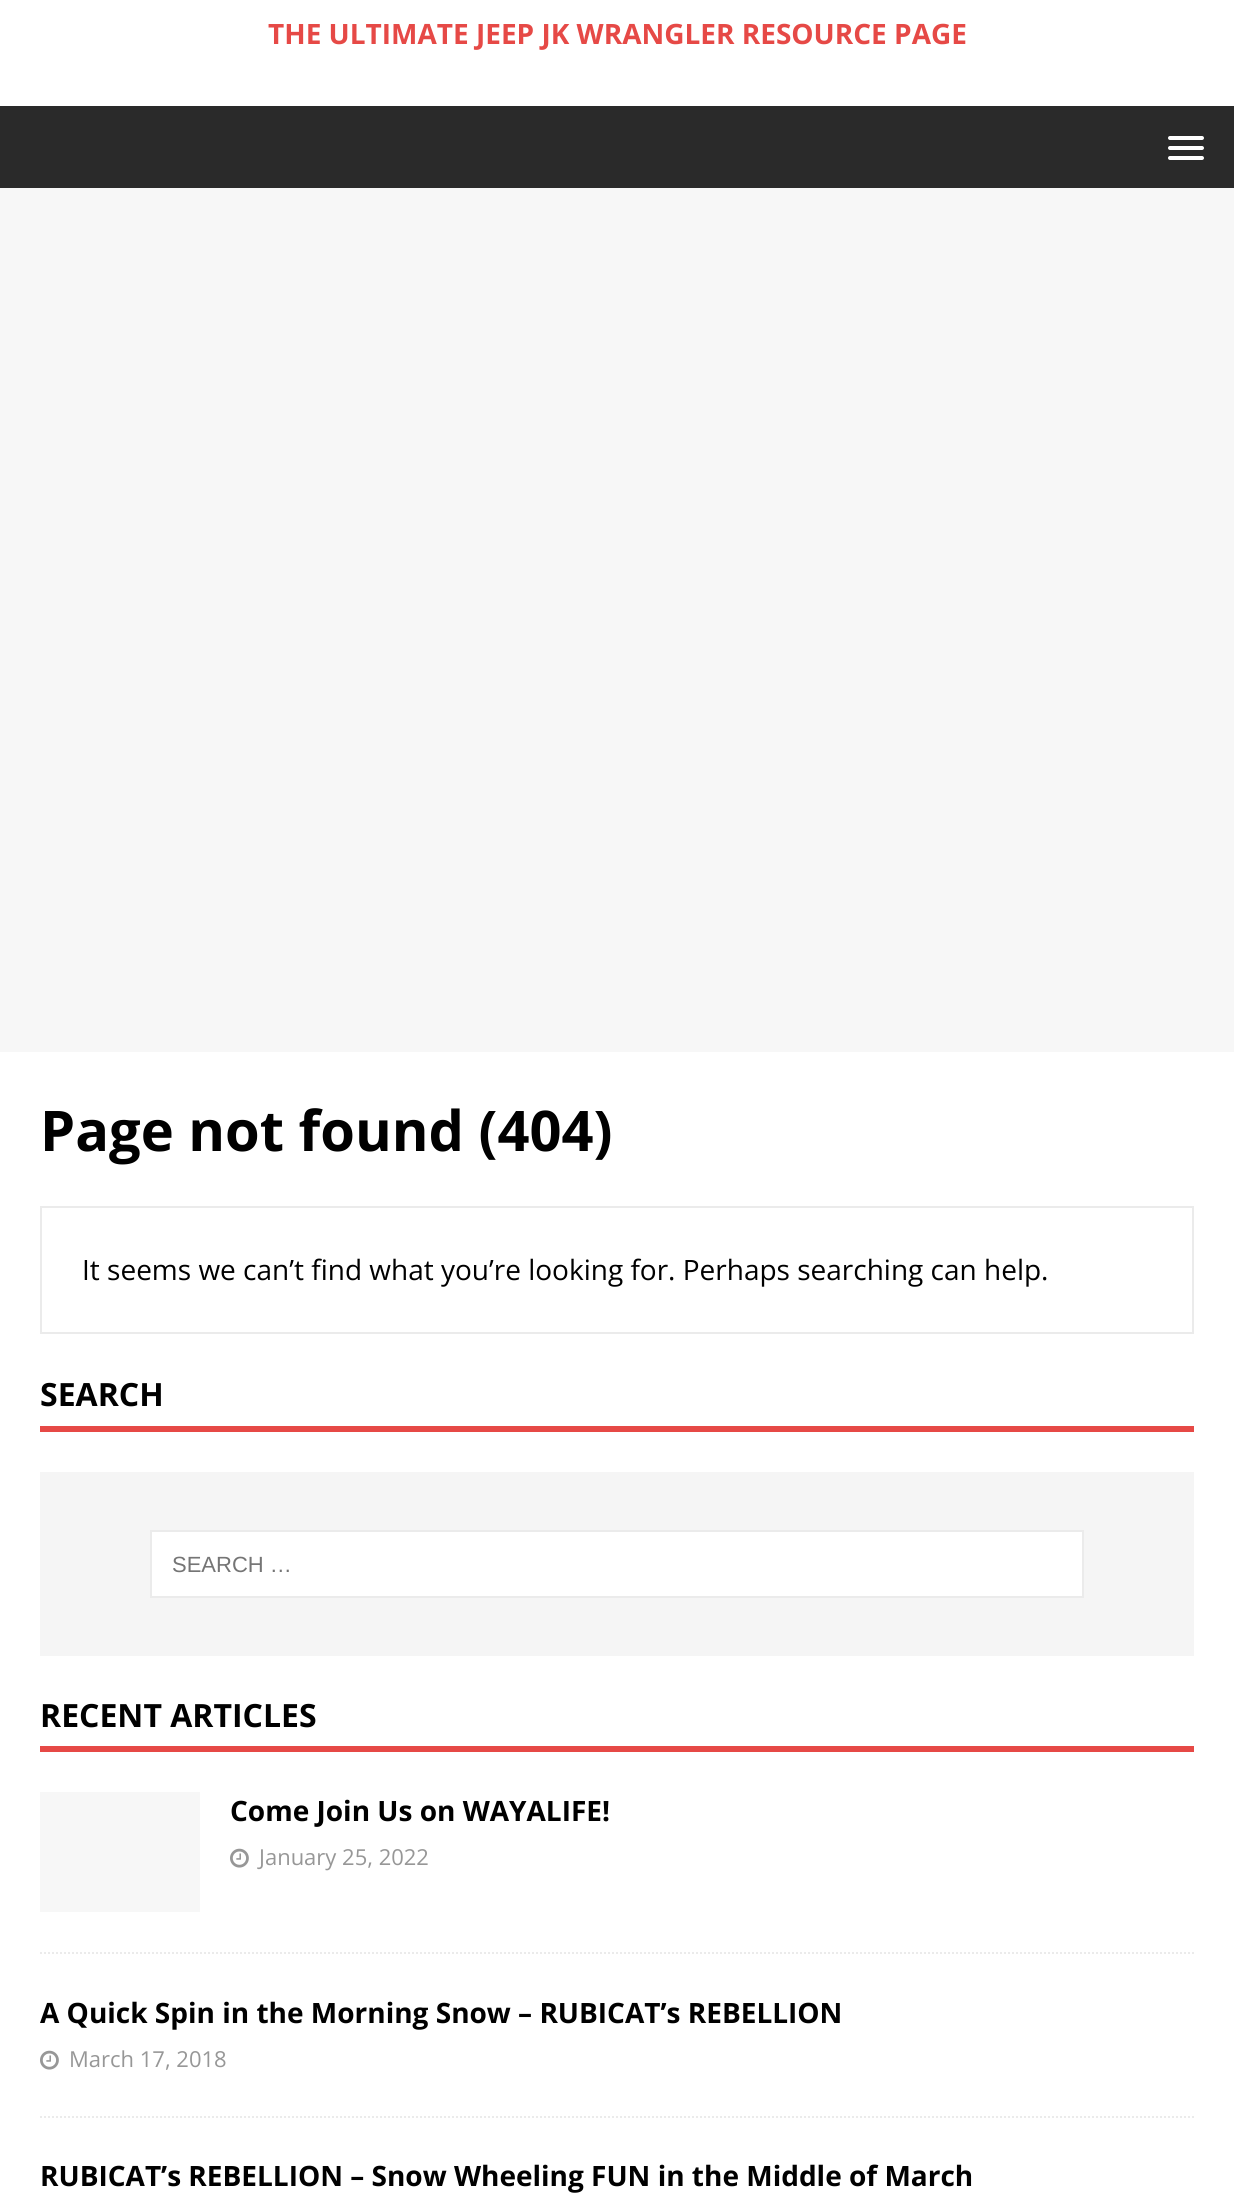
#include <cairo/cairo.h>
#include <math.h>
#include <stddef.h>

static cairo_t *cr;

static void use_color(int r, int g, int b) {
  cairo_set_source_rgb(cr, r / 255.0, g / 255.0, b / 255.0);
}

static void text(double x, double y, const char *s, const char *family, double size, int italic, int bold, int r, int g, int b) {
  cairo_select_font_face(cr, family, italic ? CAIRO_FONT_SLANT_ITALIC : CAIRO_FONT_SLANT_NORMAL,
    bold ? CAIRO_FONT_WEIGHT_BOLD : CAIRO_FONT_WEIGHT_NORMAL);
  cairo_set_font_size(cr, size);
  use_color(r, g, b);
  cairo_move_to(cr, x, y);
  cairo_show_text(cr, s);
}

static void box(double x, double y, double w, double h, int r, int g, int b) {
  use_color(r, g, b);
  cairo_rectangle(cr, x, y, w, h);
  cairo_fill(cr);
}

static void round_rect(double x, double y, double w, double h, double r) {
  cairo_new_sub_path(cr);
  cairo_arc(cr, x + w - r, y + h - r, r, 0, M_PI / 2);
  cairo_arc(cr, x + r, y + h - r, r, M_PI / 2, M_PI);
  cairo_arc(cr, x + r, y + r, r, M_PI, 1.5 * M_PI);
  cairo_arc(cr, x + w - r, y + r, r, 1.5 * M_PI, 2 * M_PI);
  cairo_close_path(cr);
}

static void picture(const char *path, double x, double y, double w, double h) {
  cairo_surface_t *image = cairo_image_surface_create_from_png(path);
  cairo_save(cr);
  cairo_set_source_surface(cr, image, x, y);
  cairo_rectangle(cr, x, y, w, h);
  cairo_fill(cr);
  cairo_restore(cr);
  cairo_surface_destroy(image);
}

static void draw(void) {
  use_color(247, 247, 247);
  cairo_paint(cr);
  box(0, 0, 1234, 106, 255, 255, 255);
  box(0, 106, 1234, 82, 42, 42, 42);
  use_color(255, 255, 255);
  round_rect(1168, 136, 36, 4, 2);
  cairo_fill(cr);
  round_rect(1168, 146, 36, 4, 2);
  cairo_fill(cr);
  round_rect(1168, 156, 36, 4, 2);
  cairo_fill(cr);
  box(0, 1052, 1234, 1149, 255, 255, 255);
  cairo_rectangle(cr, 41, 1207, 1152, 126);
  use_color(235, 235, 235);
  cairo_stroke(cr);
  box(40, 1426, 1154, 6, 230, 73, 70);
  box(40, 1472, 1154, 184, 245, 245, 245);
  use_color(255, 255, 255);
  cairo_rectangle(cr, 151, 1531, 932, 66);
  cairo_fill_preserve(cr);
  use_color(235, 235, 235);
  cairo_stroke(cr);
  box(40, 1746, 1154, 6, 230, 73, 70);
  cairo_new_path(cr);
  cairo_move_to(cr, 40, 1953);
  cairo_line_to(cr, 1194, 1953);
  use_color(235, 235, 235);
  cairo_set_dash(cr, (double[]){2, 2}, 2, 0);
  cairo_stroke(cr);
  box(40, 1792, 160, 120, 247, 247, 247);
  picture("img_01.png", 230, 1848, 19, 20);
  cairo_new_path(cr);
  cairo_move_to(cr, 40, 2117);
  cairo_line_to(cr, 1194, 2117);
  use_color(235, 235, 235);
  cairo_stroke(cr);
  picture("img_01.png", 40, 2050, 19, 20);
  text(268, 44, "THE ULTIMATE JEEP JK WRANGLER RESOURCE PAGE", "Open Sans", 28, 0, 1, 230, 73, 70);
  text(40, 1151, "Page not found (404)", "Open Sans", 56, 0, 1, 0, 0, 0);
  text(82, 1280, "It seems we can’t find what you’re looking for. Perhaps searching can help.", "Open Sans", 28, 0, 0, 0, 0, 0);
  text(40, 1406, "SEARCH", "Open Sans", 32, 0, 1, 0, 0, 0);
  text(172, 1572, "SEARCH …", "Liberation Sans", 22, 0, 0, 117, 117, 117);
  text(40, 1727, "RECENT ARTICLES", "Open Sans", 32, 0, 1, 0, 0, 0);
  text(230, 1821, "Come Join Us on WAYALIFE!", "Open Sans", 28, 0, 1, 0, 0, 0);
  text(259, 1865, "January 25, 2022", "Open Sans", 22, 0, 0, 151, 151, 151);
  text(40, 2023, "A Quick Spin in the Morning Snow – RUBICAT’s REBELLION", "Open Sans", 28, 0, 1, 0, 0, 0);
  text(69, 2067, "March 17, 2018", "Open Sans", 22, 0, 0, 151, 151, 151);
  text(40, 2186, "RUBICAT’s REBELLION – Snow Wheeling FUN in the Middle of March", "Open Sans", 28, 0, 1, 0, 0, 0);
}

int main(void) {
  cairo_surface_t *surface = cairo_image_surface_create(CAIRO_FORMAT_RGB24, 1234, 2201);
  cr = cairo_create(surface);
  cairo_font_options_t *options = cairo_font_options_create();
  cairo_font_options_set_hint_metrics(options, CAIRO_HINT_METRICS_OFF);
  cairo_font_options_set_hint_style(options, CAIRO_HINT_STYLE_NONE);
  cairo_set_font_options(cr, options);
  cairo_set_miter_limit(cr, 4);
  draw();
  cairo_surface_write_to_png(surface, "out.png");
  cairo_font_options_destroy(options);
  cairo_destroy(cr);
  cairo_surface_destroy(surface);
  return 0;
}
